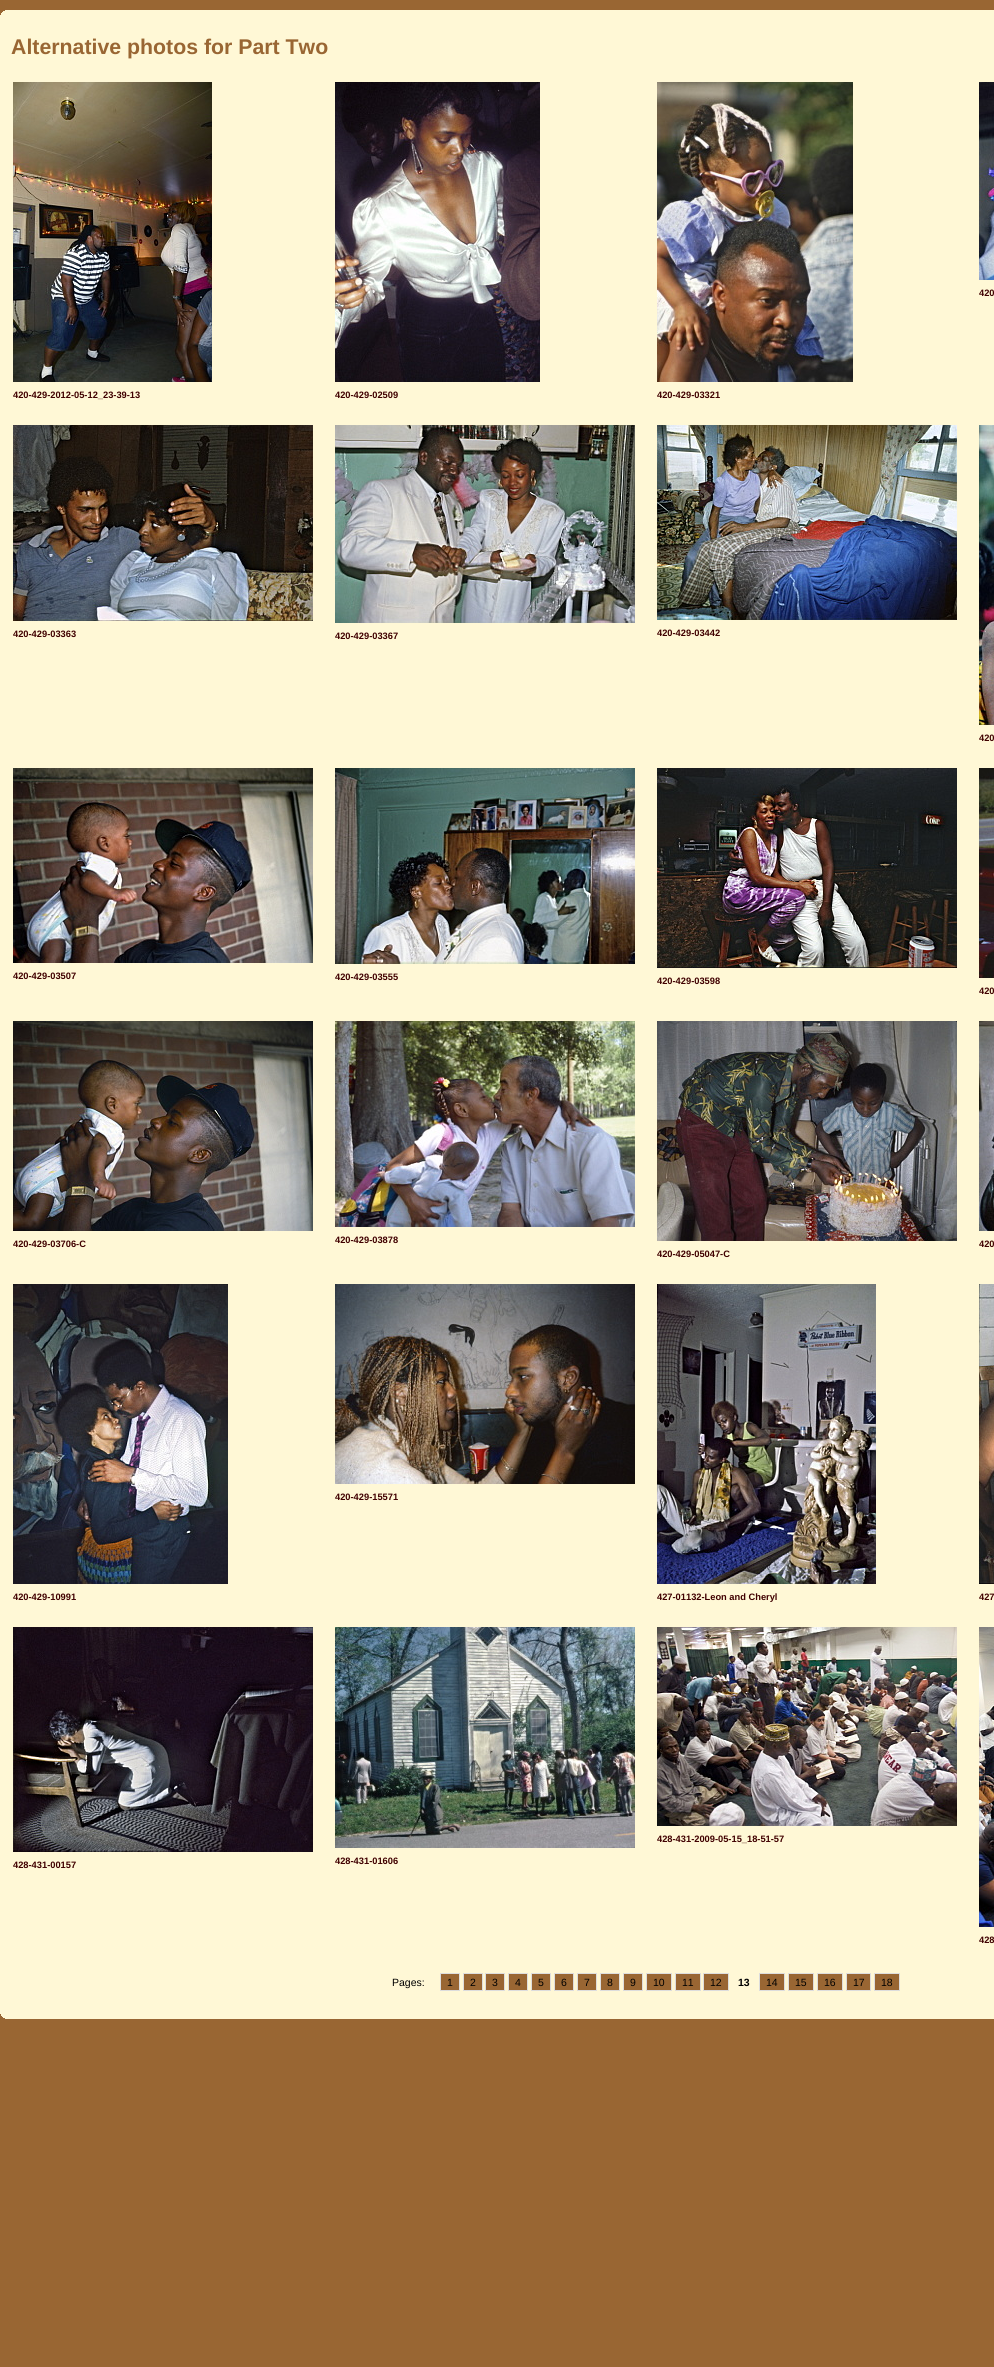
#include <cairo/cairo.h>
#include <math.h>
#include <stddef.h>

static cairo_t *cr;

static void use_color(int r, int g, int b) {
  cairo_set_source_rgb(cr, r / 255.0, g / 255.0, b / 255.0);
}

static void text(double x, double y, const char *s, const char *family, double size, int italic, int bold, int r, int g, int b) {
  cairo_select_font_face(cr, family, italic ? CAIRO_FONT_SLANT_ITALIC : CAIRO_FONT_SLANT_NORMAL,
    bold ? CAIRO_FONT_WEIGHT_BOLD : CAIRO_FONT_WEIGHT_NORMAL);
  cairo_set_font_size(cr, size);
  use_color(r, g, b);
  cairo_move_to(cr, x, y);
  cairo_show_text(cr, s);
}

static void box(double x, double y, double w, double h, int r, int g, int b) {
  use_color(r, g, b);
  cairo_rectangle(cr, x, y, w, h);
  cairo_fill(cr);
}

static void picture(const char *path, double x, double y, double w, double h) {
  cairo_surface_t *image = cairo_image_surface_create_from_png(path);
  cairo_save(cr);
  cairo_set_source_surface(cr, image, x, y);
  cairo_rectangle(cr, x, y, w, h);
  cairo_fill(cr);
  cairo_restore(cr);
  cairo_surface_destroy(image);
}

static void draw(void) {
  use_color(153, 102, 51);
  cairo_paint(cr);
  box(5, 10, 989, 1, 255, 248, 214);
  box(3, 11, 991, 1, 255, 248, 214);
  box(2, 12, 992, 1, 255, 248, 214);
  box(1, 13, 993, 2, 255, 248, 214);
  box(0, 15, 994, 45, 255, 248, 214);
  box(0, 60, 994, 1954, 255, 248, 214);
  picture("img_01.png", 979, 82, 15, 198);
  picture("img_02.png", 13, 82, 199, 300);
  picture("img_03.png", 335, 82, 205, 300);
  picture("img_04.png", 657, 82, 196, 300);
  picture("img_05.png", 13, 425, 300, 196);
  picture("img_06.png", 335, 425, 300, 198);
  picture("img_07.png", 657, 425, 300, 195);
  picture("img_08.png", 979, 425, 15, 300);
  picture("img_09.png", 13, 768, 300, 195);
  picture("img_10.png", 335, 768, 300, 196);
  picture("img_11.png", 657, 768, 300, 200);
  picture("img_12.png", 979, 768, 15, 210);
  picture("img_13.png", 13, 1021, 300, 210);
  picture("img_14.png", 335, 1021, 300, 206);
  picture("img_15.png", 979, 1021, 15, 210);
  picture("img_16.png", 657, 1021, 300, 220);
  picture("img_17.png", 335, 1284, 300, 200);
  picture("img_18.png", 13, 1284, 215, 300);
  picture("img_19.png", 657, 1284, 219, 300);
  picture("img_20.png", 979, 1284, 15, 300);
  picture("img_21.png", 657, 1627, 300, 199);
  picture("img_22.png", 13, 1627, 300, 225);
  picture("img_23.png", 335, 1627, 300, 221);
  picture("img_24.png", 979, 1627, 15, 300);
  use_color(153, 102, 51);
  cairo_rectangle(cr, 440.5, 1973.5, 19, 17);
  cairo_fill_preserve(cr);
  use_color(221, 221, 221);
  cairo_set_line_width(cr, 1);
  cairo_stroke(cr);
  use_color(153, 102, 51);
  cairo_rectangle(cr, 463.5, 1973.5, 19, 17);
  cairo_fill_preserve(cr);
  use_color(221, 221, 221);
  cairo_stroke(cr);
  use_color(153, 102, 51);
  cairo_rectangle(cr, 485.5, 1973.5, 19, 17);
  cairo_fill_preserve(cr);
  use_color(221, 221, 221);
  cairo_stroke(cr);
  use_color(153, 102, 51);
  cairo_rectangle(cr, 508.5, 1973.5, 19, 17);
  cairo_fill_preserve(cr);
  use_color(221, 221, 221);
  cairo_stroke(cr);
  use_color(153, 102, 51);
  cairo_rectangle(cr, 531.5, 1973.5, 19, 17);
  cairo_fill_preserve(cr);
  use_color(221, 221, 221);
  cairo_stroke(cr);
  use_color(153, 102, 51);
  cairo_rectangle(cr, 554.5, 1973.5, 19, 17);
  cairo_fill_preserve(cr);
  use_color(221, 221, 221);
  cairo_stroke(cr);
  use_color(153, 102, 51);
  cairo_rectangle(cr, 577.5, 1973.5, 19, 17);
  cairo_fill_preserve(cr);
  use_color(221, 221, 221);
  cairo_stroke(cr);
  use_color(153, 102, 51);
  cairo_rectangle(cr, 600.5, 1973.5, 19, 17);
  cairo_fill_preserve(cr);
  use_color(221, 221, 221);
  cairo_stroke(cr);
  use_color(153, 102, 51);
  cairo_rectangle(cr, 623.5, 1973.5, 19, 17);
  cairo_fill_preserve(cr);
  use_color(221, 221, 221);
  cairo_stroke(cr);
  use_color(153, 102, 51);
  cairo_rectangle(cr, 646.5, 1973.5, 25, 17);
  cairo_fill_preserve(cr);
  use_color(221, 221, 221);
  cairo_stroke(cr);
  use_color(153, 102, 51);
  cairo_rectangle(cr, 675.5, 1973.5, 25, 17);
  cairo_fill_preserve(cr);
  use_color(221, 221, 221);
  cairo_stroke(cr);
  use_color(153, 102, 51);
  cairo_rectangle(cr, 703.5, 1973.5, 25, 17);
  cairo_fill_preserve(cr);
  use_color(221, 221, 221);
  cairo_stroke(cr);
  use_color(153, 102, 51);
  cairo_rectangle(cr, 759.5, 1973.5, 25, 17);
  cairo_fill_preserve(cr);
  use_color(221, 221, 221);
  cairo_stroke(cr);
  use_color(153, 102, 51);
  cairo_rectangle(cr, 788.5, 1973.5, 25, 17);
  cairo_fill_preserve(cr);
  use_color(221, 221, 221);
  cairo_stroke(cr);
  use_color(153, 102, 51);
  cairo_rectangle(cr, 817.5, 1973.5, 25, 17);
  cairo_fill_preserve(cr);
  use_color(221, 221, 221);
  cairo_stroke(cr);
  use_color(153, 102, 51);
  cairo_rectangle(cr, 846.5, 1973.5, 24, 17);
  cairo_fill_preserve(cr);
  use_color(221, 221, 221);
  cairo_stroke(cr);
  use_color(153, 102, 51);
  cairo_rectangle(cr, 874.5, 1973.5, 25, 17);
  cairo_fill_preserve(cr);
  use_color(221, 221, 221);
  cairo_stroke(cr);
  box(1, 2014, 993, 2, 255, 248, 214);
  box(2, 2016, 992, 1, 255, 248, 214);
  box(3, 2017, 991, 1, 255, 248, 214);
  box(5, 2018, 989, 1, 255, 248, 214);
  text(11, 54, "Alternative photos for Part Two", "Liberation Sans", 21.3, 0, 1, 153, 102, 51);
  text(979, 296, "420", "Liberation Sans", 9.3, 0, 1, 64, 0, 0);
  text(13, 398, "420-429-2012-05-12_23-39-13", "Liberation Sans", 9.3, 0, 1, 64, 0, 0);
  text(335, 398, "420-429-02509", "Liberation Sans", 9.3, 0, 1, 64, 0, 0);
  text(657, 398, "420-429-03321", "Liberation Sans", 9.3, 0, 1, 64, 0, 0);
  text(13, 637, "420-429-03363", "Liberation Sans", 9.3, 0, 1, 64, 0, 0);
  text(335, 639, "420-429-03367", "Liberation Sans", 9.3, 0, 1, 64, 0, 0);
  text(657, 636, "420-429-03442", "Liberation Sans", 9.3, 0, 1, 64, 0, 0);
  text(979, 741, "420", "Liberation Sans", 9.3, 0, 1, 64, 0, 0);
  text(13, 979, "420-429-03507", "Liberation Sans", 9.3, 0, 1, 64, 0, 0);
  text(335, 980, "420-429-03555", "Liberation Sans", 9.3, 0, 1, 64, 0, 0);
  text(657, 984, "420-429-03598", "Liberation Sans", 9.3, 0, 1, 64, 0, 0);
  text(979, 994, "420", "Liberation Sans", 9.3, 0, 1, 64, 0, 0);
  text(13, 1247, "420-429-03706-C", "Liberation Sans", 9.3, 0, 1, 64, 0, 0);
  text(335, 1243, "420-429-03878", "Liberation Sans", 9.3, 0, 1, 64, 0, 0);
  text(979, 1247, "420", "Liberation Sans", 9.3, 0, 1, 64, 0, 0);
  text(657, 1257, "420-429-05047-C", "Liberation Sans", 9.3, 0, 1, 64, 0, 0);
  text(335, 1500, "420-429-15571", "Liberation Sans", 9.3, 0, 1, 64, 0, 0);
  text(13, 1600, "420-429-10991", "Liberation Sans", 9.3, 0, 1, 64, 0, 0);
  text(657, 1600, "427-01132-Leon and Cheryl", "Liberation Sans", 9.3, 0, 1, 64, 0, 0);
  text(979, 1600, "427", "Liberation Sans", 9.3, 0, 1, 64, 0, 0);
  text(657, 1842, "428-431-2009-05-15_18-51-57", "Liberation Sans", 9.3, 0, 1, 64, 0, 0);
  text(13, 1868, "428-431-00157", "Liberation Sans", 9.3, 0, 1, 64, 0, 0);
  text(335, 1864, "428-431-01606", "Liberation Sans", 9.3, 0, 1, 64, 0, 0);
  text(979, 1943, "428", "Liberation Sans", 9.3, 0, 1, 64, 0, 0);
  text(392, 1986, "Pages:", "Liberation Sans", 10.5, 0, 0, 0, 0, 0);
  text(447, 1986, "1", "Liberation Sans", 10.5, 0, 0, 0, 0, 0);
  text(470, 1986, "2", "Liberation Sans", 10.5, 0, 0, 0, 0, 0);
  text(492, 1986, "3", "Liberation Sans", 10.5, 0, 0, 0, 0, 0);
  text(515, 1986, "4", "Liberation Sans", 10.5, 0, 0, 0, 0, 0);
  text(538, 1986, "5", "Liberation Sans", 10.5, 0, 0, 0, 0, 0);
  text(561, 1986, "6", "Liberation Sans", 10.5, 0, 0, 0, 0, 0);
  text(584, 1986, "7", "Liberation Sans", 10.5, 0, 0, 0, 0, 0);
  text(607, 1986, "8", "Liberation Sans", 10.5, 0, 0, 0, 0, 0);
  text(630, 1986, "9", "Liberation Sans", 10.5, 0, 0, 0, 0, 0);
  text(653, 1986, "10", "Liberation Sans", 10.5, 0, 0, 0, 0, 0);
  text(682, 1986, "11", "Liberation Sans", 10.5, 0, 0, 0, 0, 0);
  text(710, 1986, "12", "Liberation Sans", 10.5, 0, 0, 0, 0, 0);
  text(738, 1986, "13", "Liberation Sans", 10.5, 0, 1, 0, 0, 0);
  text(766, 1986, "14", "Liberation Sans", 10.5, 0, 0, 0, 0, 0);
  text(795, 1986, "15", "Liberation Sans", 10.5, 0, 0, 0, 0, 0);
  text(824, 1986, "16", "Liberation Sans", 10.5, 0, 0, 0, 0, 0);
  text(853, 1986, "17", "Liberation Sans", 10.5, 0, 0, 0, 0, 0);
  text(881, 1986, "18", "Liberation Sans", 10.5, 0, 0, 0, 0, 0);
}

int main(void) {
  cairo_surface_t *surface = cairo_image_surface_create(CAIRO_FORMAT_RGB24, 994, 2367);
  cr = cairo_create(surface);
  cairo_font_options_t *options = cairo_font_options_create();
  cairo_font_options_set_hint_metrics(options, CAIRO_HINT_METRICS_OFF);
  cairo_font_options_set_hint_style(options, CAIRO_HINT_STYLE_NONE);
  cairo_set_font_options(cr, options);
  cairo_set_miter_limit(cr, 4);
  draw();
  cairo_surface_write_to_png(surface, "out.png");
  cairo_font_options_destroy(options);
  cairo_destroy(cr);
  cairo_surface_destroy(surface);
  return 0;
}
